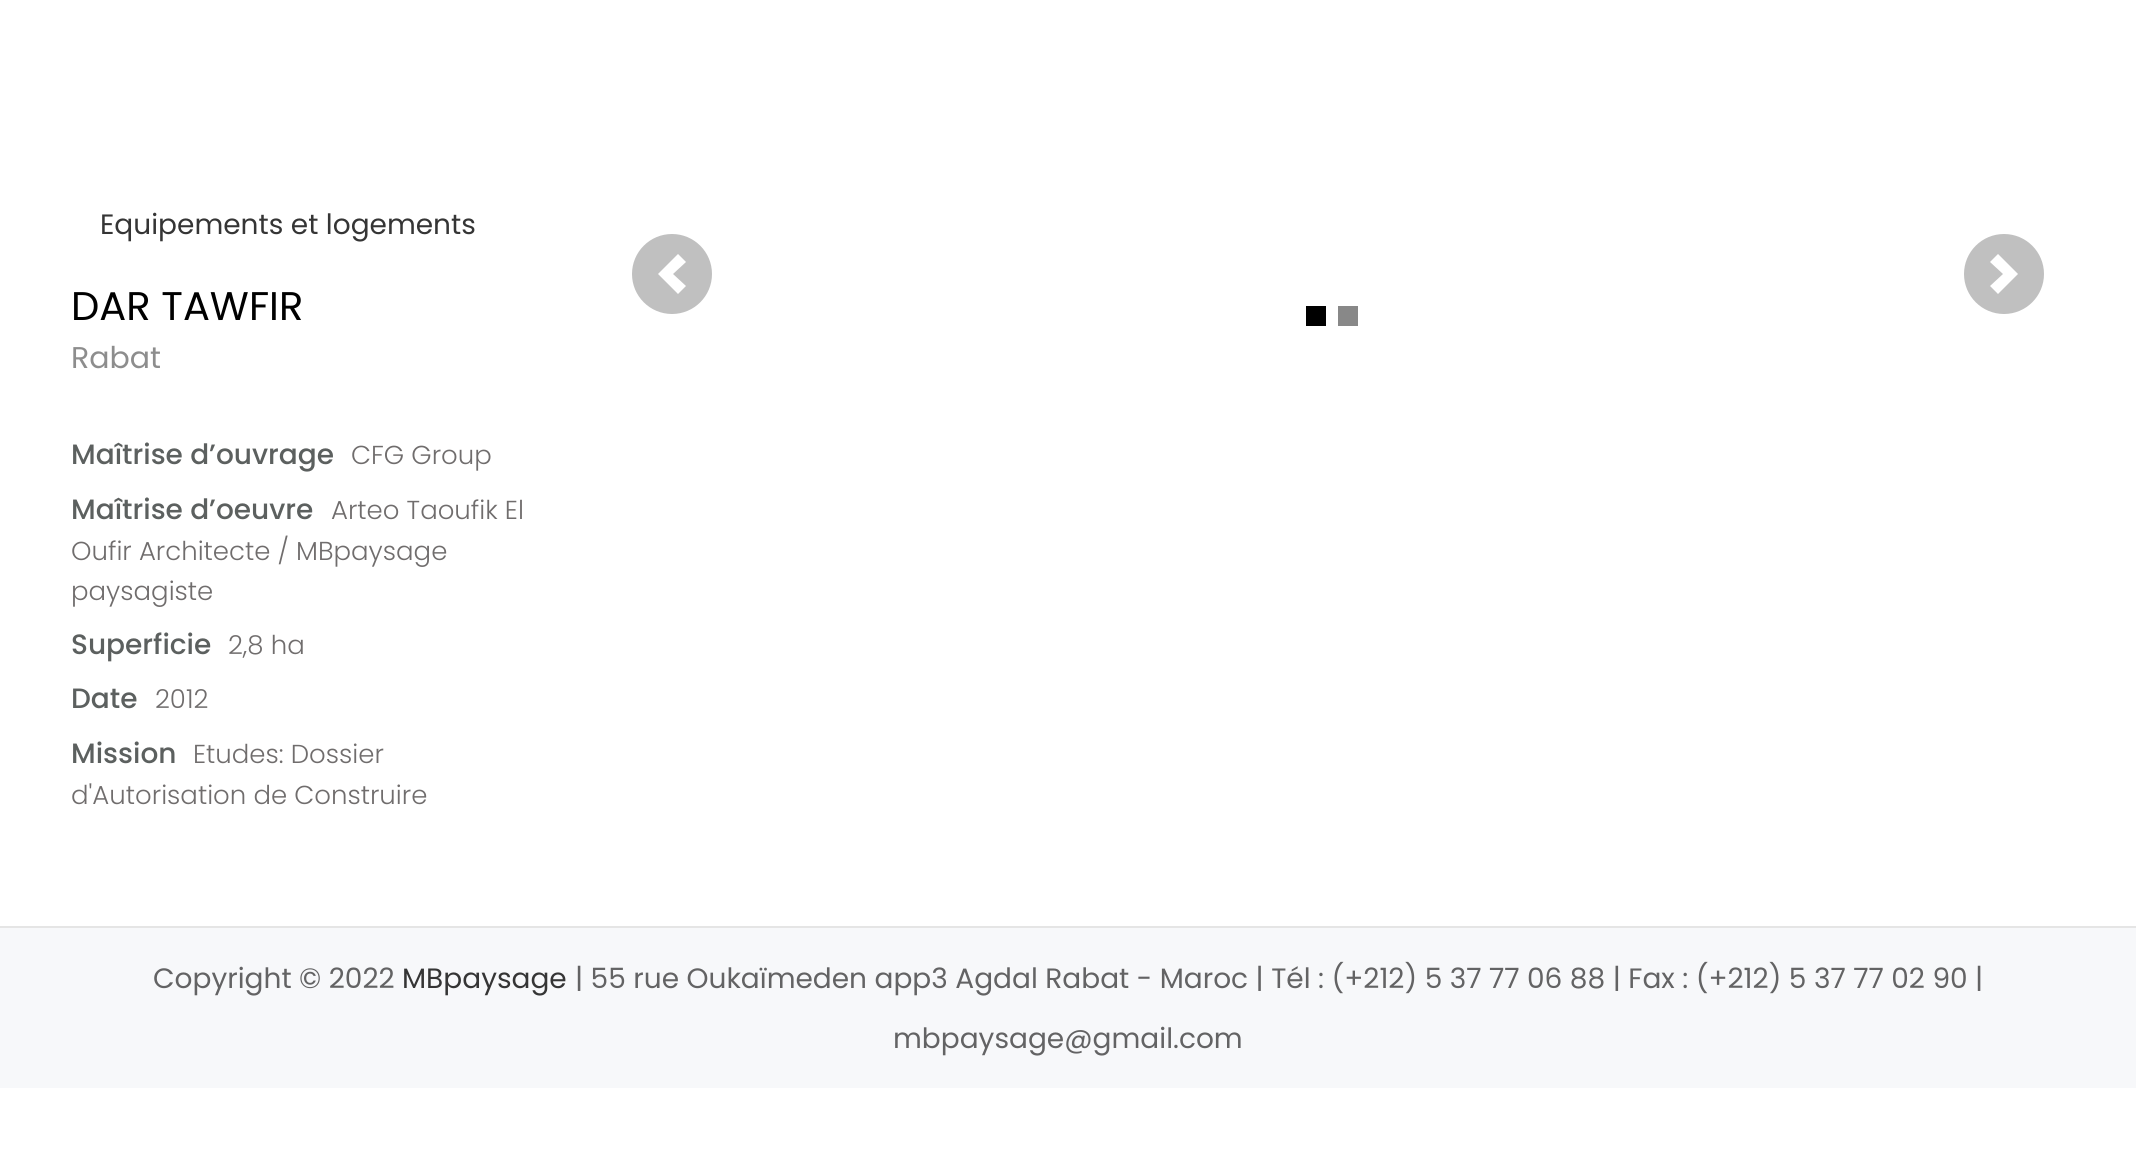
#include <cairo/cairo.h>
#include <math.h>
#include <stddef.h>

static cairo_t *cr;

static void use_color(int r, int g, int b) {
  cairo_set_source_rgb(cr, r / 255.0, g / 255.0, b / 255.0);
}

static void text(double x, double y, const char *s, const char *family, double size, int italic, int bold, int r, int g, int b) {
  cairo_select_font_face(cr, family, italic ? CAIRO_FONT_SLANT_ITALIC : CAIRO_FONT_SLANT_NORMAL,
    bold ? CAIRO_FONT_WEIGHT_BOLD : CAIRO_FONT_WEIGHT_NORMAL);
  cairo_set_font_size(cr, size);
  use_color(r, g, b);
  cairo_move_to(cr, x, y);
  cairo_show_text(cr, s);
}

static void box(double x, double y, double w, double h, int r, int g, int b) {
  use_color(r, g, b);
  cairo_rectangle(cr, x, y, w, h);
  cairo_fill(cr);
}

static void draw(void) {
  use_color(255, 255, 255);
  cairo_paint(cr);
  use_color(192, 192, 192);
  cairo_arc(cr, 672, 274, 40, 0, 2 * M_PI);
  cairo_fill(cr);
  use_color(255, 255, 255);
  cairo_new_path(cr);
  cairo_move_to(cr, 678, 254);
  cairo_line_to(cr, 658, 274);
  cairo_line_to(cr, 678, 294);
  cairo_line_to(cr, 686, 286);
  cairo_line_to(cr, 673, 274);
  cairo_line_to(cr, 686, 262);
  cairo_close_path(cr);
  cairo_fill(cr);
  use_color(192, 192, 192);
  cairo_arc(cr, 2004, 274, 40, 0, 2 * M_PI);
  cairo_fill(cr);
  use_color(255, 255, 255);
  cairo_new_path(cr);
  cairo_move_to(cr, 1998, 254);
  cairo_line_to(cr, 1990, 262);
  cairo_line_to(cr, 2003, 274);
  cairo_line_to(cr, 1990, 286);
  cairo_line_to(cr, 1998, 294);
  cairo_line_to(cr, 2018, 274);
  cairo_close_path(cr);
  cairo_fill(cr);
  box(1306, 306, 20, 20, 0, 0, 0);
  box(1338, 306, 20, 20, 136, 136, 136);
  box(0, 928, 2136, 160, 247, 248, 250);
  box(0, 926, 2136, 2, 229, 229, 229);
  text(100, 234, "Equipements et logements", "Poppins", 28, 0, 0, 53, 53, 53);
  text(71, 320, "DAR TAWFIR", "Poppins", 40, 0, 0, 0, 0, 0);
  text(71, 368, "Rabat", "Poppins", 30, 0, 0, 141, 141, 141);
  text(71, 464, "Maîtrise d’ouvrage", "Poppins Medium", 28, 0, 0, 92, 96, 95);
  text(351, 464, "CFG Group", "Poppins Light", 26, 0, 0, 112, 109, 109);
  text(71, 519, "Maîtrise d’oeuvre", "Poppins Medium", 28, 0, 0, 92, 96, 95);
  text(331, 519, "Arteo Taoufik El", "Poppins Light", 26, 0, 0, 112, 109, 109);
  text(71, 560, "Oufir Architecte / MBpaysage", "Poppins Light", 26, 0, 0, 112, 109, 109);
  text(71, 600, "paysagiste", "Poppins Light", 26, 0, 0, 112, 109, 109);
  text(71, 654, "Superficie", "Poppins Medium", 28, 0, 0, 92, 96, 95);
  text(228, 654, "2,8 ha", "Poppins Light", 26, 0, 0, 112, 109, 109);
  text(71, 708, "Date", "Poppins Medium", 28, 0, 0, 92, 96, 95);
  text(155, 708, "2012", "Poppins Light", 26, 0, 0, 112, 109, 109);
  text(71, 763, "Mission", "Poppins Medium", 28, 0, 0, 92, 96, 95);
  text(193, 763, "Etudes: Dossier", "Poppins Light", 26, 0, 0, 112, 109, 109);
  text(71, 804, "d'Autorisation de Construire", "Poppins Light", 26, 0, 0, 112, 109, 109);
  text(153, 988, "Copyright © 2022", "Poppins", 28, 0, 0, 99, 99, 100);
  text(402, 988, "MBpaysage", "Poppins", 28, 0, 0, 53, 53, 53);
  text(575, 988, "| 55 rue Oukaïmeden app3 Agdal Rabat - Maroc | Tél : (+212) 5 37 77 06 88 | Fax : (+212) 5 37 77 02 90 |", "Poppins", 28, 0, 0, 99, 99, 100);
  text(893, 1048, "mbpaysage@gmail.com", "Poppins", 28, 0, 0, 99, 99, 100);
}

int main(void) {
  cairo_surface_t *surface = cairo_image_surface_create(CAIRO_FORMAT_RGB24, 2136, 1149);
  cr = cairo_create(surface);
  cairo_font_options_t *options = cairo_font_options_create();
  cairo_font_options_set_hint_metrics(options, CAIRO_HINT_METRICS_OFF);
  cairo_font_options_set_hint_style(options, CAIRO_HINT_STYLE_NONE);
  cairo_set_font_options(cr, options);
  cairo_set_miter_limit(cr, 4);
  draw();
  cairo_surface_write_to_png(surface, "out.png");
  cairo_font_options_destroy(options);
  cairo_destroy(cr);
  cairo_surface_destroy(surface);
  return 0;
}
